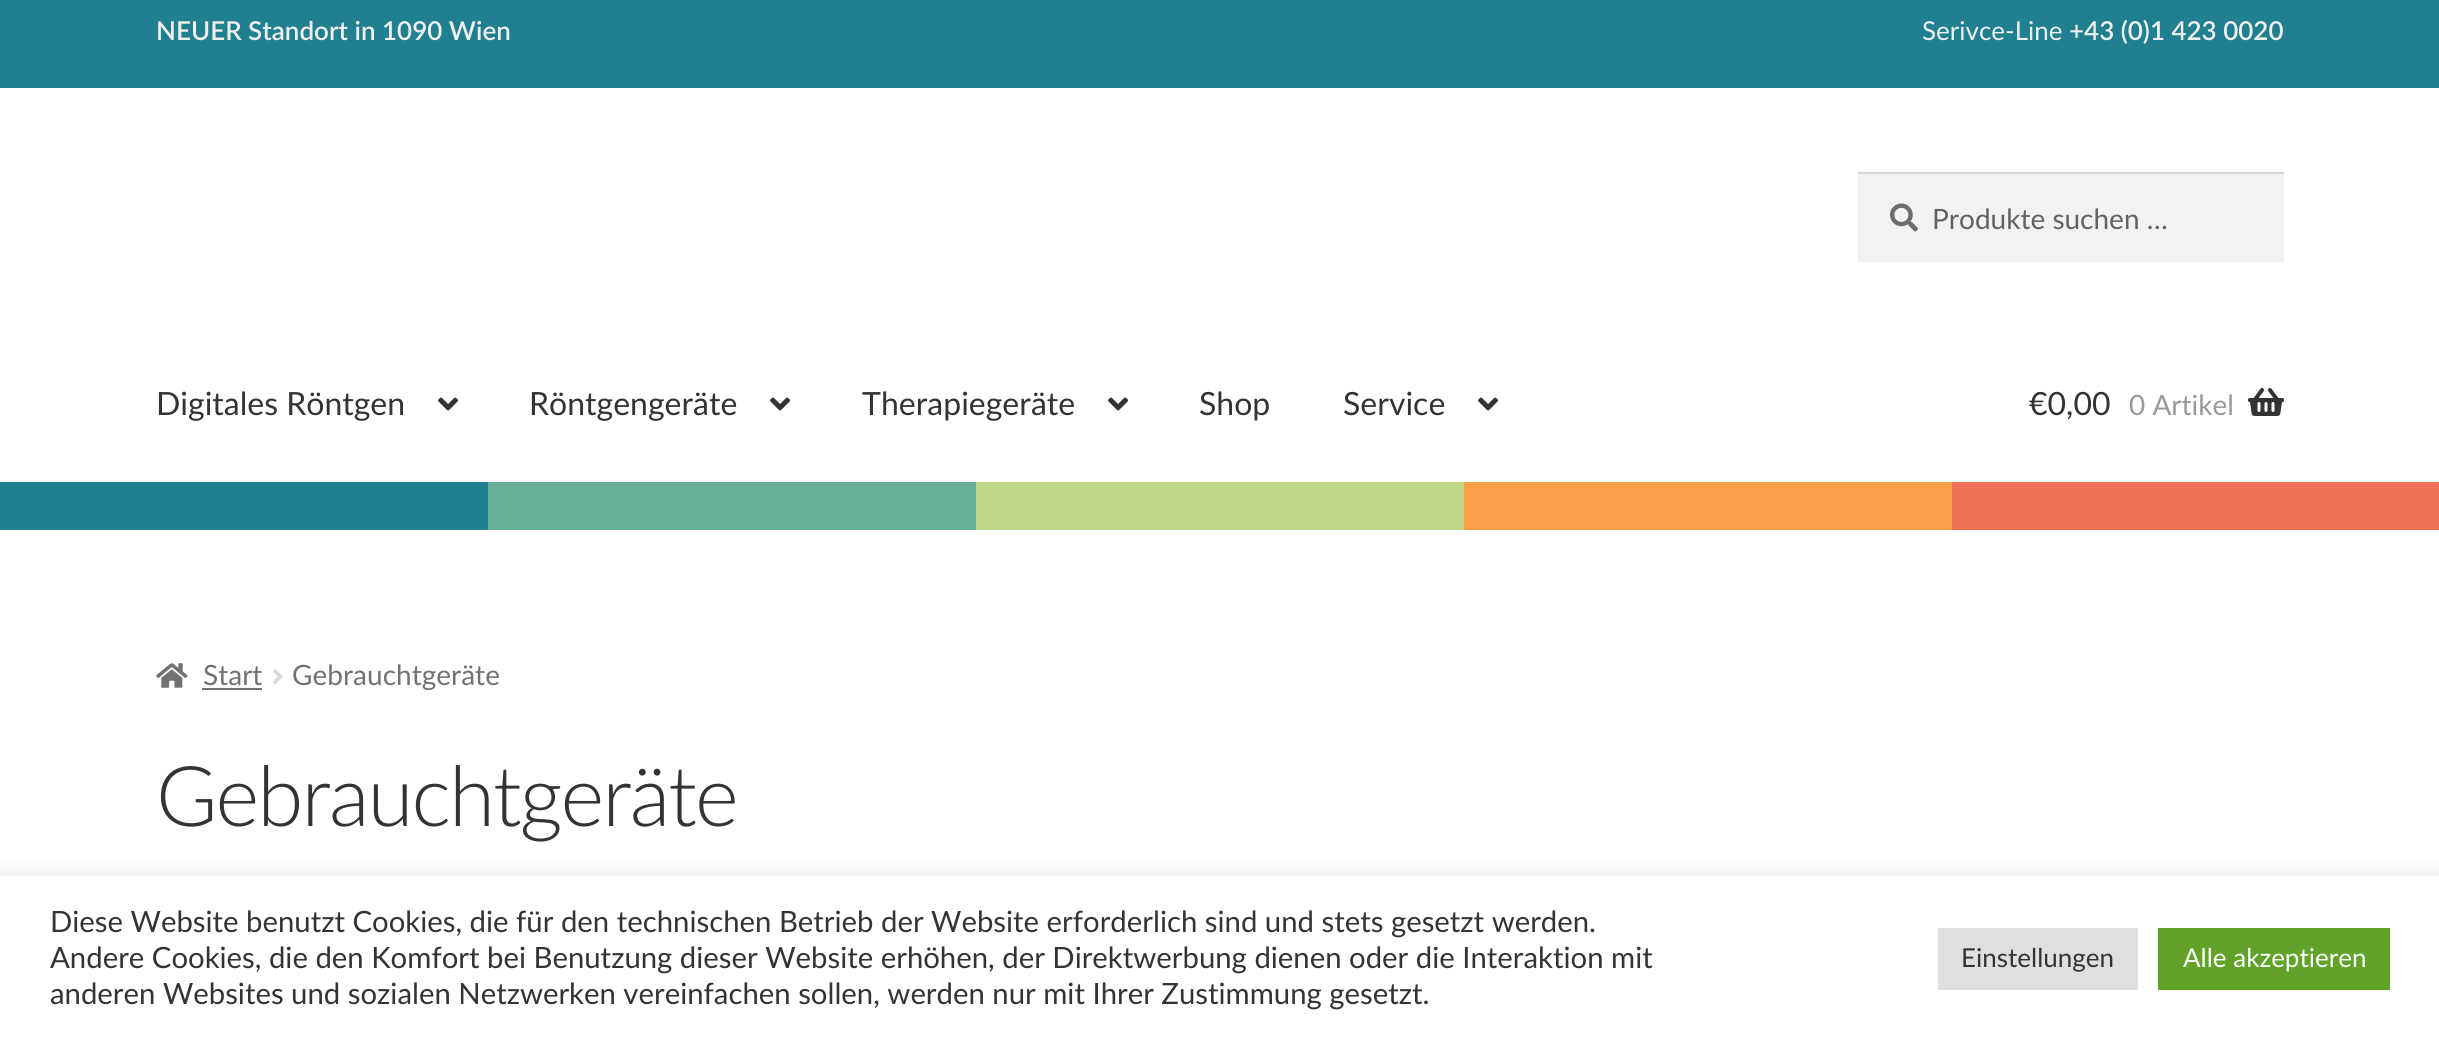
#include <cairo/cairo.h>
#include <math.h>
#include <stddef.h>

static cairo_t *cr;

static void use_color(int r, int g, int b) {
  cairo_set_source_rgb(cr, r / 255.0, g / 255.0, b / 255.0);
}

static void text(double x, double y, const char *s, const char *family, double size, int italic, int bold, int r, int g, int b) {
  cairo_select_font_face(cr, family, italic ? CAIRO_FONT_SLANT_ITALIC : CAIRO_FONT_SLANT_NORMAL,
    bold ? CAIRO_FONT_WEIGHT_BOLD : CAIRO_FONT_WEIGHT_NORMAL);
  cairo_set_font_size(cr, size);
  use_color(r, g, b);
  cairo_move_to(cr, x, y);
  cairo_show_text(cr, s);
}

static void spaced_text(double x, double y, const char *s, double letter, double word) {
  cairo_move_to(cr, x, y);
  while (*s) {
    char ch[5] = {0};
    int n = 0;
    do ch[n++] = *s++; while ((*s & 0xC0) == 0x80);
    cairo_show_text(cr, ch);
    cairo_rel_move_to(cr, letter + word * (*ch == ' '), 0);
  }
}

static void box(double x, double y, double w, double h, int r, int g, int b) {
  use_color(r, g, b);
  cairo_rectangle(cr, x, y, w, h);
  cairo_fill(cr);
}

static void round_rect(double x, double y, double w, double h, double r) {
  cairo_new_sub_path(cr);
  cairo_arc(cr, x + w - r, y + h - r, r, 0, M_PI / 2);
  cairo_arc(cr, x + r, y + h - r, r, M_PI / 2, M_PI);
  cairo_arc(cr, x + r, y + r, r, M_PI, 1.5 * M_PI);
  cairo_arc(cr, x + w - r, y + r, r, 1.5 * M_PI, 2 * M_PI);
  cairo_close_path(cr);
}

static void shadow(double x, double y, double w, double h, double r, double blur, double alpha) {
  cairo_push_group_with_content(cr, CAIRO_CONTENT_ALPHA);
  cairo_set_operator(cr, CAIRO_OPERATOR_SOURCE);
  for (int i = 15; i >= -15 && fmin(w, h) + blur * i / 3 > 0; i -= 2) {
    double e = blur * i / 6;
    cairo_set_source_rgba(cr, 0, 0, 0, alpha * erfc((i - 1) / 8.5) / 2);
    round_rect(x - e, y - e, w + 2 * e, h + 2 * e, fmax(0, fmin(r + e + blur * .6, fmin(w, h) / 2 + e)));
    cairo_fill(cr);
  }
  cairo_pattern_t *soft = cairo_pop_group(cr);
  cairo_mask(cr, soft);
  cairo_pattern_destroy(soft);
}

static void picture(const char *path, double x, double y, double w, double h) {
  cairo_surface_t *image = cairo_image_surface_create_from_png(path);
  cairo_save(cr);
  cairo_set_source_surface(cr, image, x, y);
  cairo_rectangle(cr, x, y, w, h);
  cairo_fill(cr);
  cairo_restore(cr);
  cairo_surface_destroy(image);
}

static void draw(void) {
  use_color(255, 255, 255);
  cairo_paint(cr);
  box(0, 0, 2439, 88, 32, 128, 144);
  box(1858, 174, 426, 88, 242, 242, 242);
  picture("img_01.png", 1890, 203, 28, 29);
  box(1858, 172, 426, 2, 212, 212, 212);
  picture("img_02.png", 438, 397, 20, 14);
  picture("img_02.png", 770, 397, 20, 14);
  picture("img_02.png", 1108, 397, 20, 14);
  picture("img_02.png", 1478, 397, 20, 14);
  picture("img_03.png", 2248, 388, 36, 28);
  box(0, 482, 488, 48, 32, 128, 144);
  box(488, 482, 488, 48, 104, 176, 152);
  box(976, 482, 488, 48, 192, 216, 136);
  box(1464, 482, 488, 48, 248, 160, 72);
  box(1952, 482, 487, 48, 240, 112, 88);
  picture("img_04.png", 156, 663, 32, 25);
  box(202, 688, 60, 2, 114, 114, 114);
  picture("img_05.png", 273, 669, 10, 16);
  use_color(172, 171, 171);
  shadow(0, 874, 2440, 164, 0, 10, 0.3);
  box(0, 876, 2439, 163, 255, 255, 255);
  box(1938, 928, 200, 62, 222, 223, 224);
  box(2158, 928, 232, 62, 97, 162, 41);
  text(156, 40, "NEUER Standort in 1090 Wien", "Lato SemiBold", 26, 0, 0, 239, 239, 239);
  text(1922, 40, "Serivce-Line", "Lato", 26, 0, 0, 239, 239, 239);
  text(2069, 40, "+43 (0)1 423 0020", "Lato SemiBold", 26, 0, 0, 239, 239, 239);
  text(1932, 229, "Produkte suchen …", "Lato", 28, 0, 0, 97, 97, 97);
  text(156, 415, "Digitales Röntgen", "Lato", 32, 0, 0, 51, 51, 51);
  text(529, 415, "Röntgengeräte", "Lato", 32, 0, 0, 51, 51, 51);
  text(862, 415, "Therapiegeräte", "Lato", 32, 0, 0, 51, 51, 51);
  text(1199, 415, "Shop", "Lato", 32, 0, 0, 51, 51, 51);
  text(1343, 415, "Service", "Lato", 32, 0, 0, 51, 51, 51);
  text(2029, 415, "€0,00", "Lato", 32, 0, 0, 51, 51, 51);
  text(2129, 415, "0 Artikel", "Lato", 28, 0, 0, 153, 153, 153);
  text(203, 685, "Start", "Lato", 28, 0, 0, 114, 114, 114);
  text(292, 685, "Gebrauchtgeräte", "Lato", 28, 0, 0, 114, 114, 114);
  cairo_select_font_face(cr, "Lato Light", CAIRO_FONT_SLANT_NORMAL, CAIRO_FONT_WEIGHT_NORMAL);
  cairo_set_font_size(cr, 83.75);
  use_color(51, 51, 51);
  spaced_text(156, 826, "Gebrauchtgeräte", -2, 0);
  text(50, 932, "Diese Website benutzt Cookies, die für den technischen Betrieb der Website erforderlich sind und stets gesetzt werden.", "Lato", 29.33, 0, 0, 51, 51, 51);
  text(50, 968, "Andere Cookies, die den Komfort bei Benutzung dieser Website erhöhen, der Direktwerbung dienen oder die Interaktion mit", "Lato", 29.33, 0, 0, 51, 51, 51);
  text(50, 1004, "anderen Websites und sozialen Netzwerken vereinfachen sollen, werden nur mit Ihrer Zustimmung gesetzt.", "Lato", 29.33, 0, 0, 51, 51, 51);
  text(1961, 967, "Einstellungen", "Lato", 26, 0, 0, 51, 51, 51);
  text(2183, 967, "Alle akzeptieren", "Lato", 26, 0, 0, 255, 255, 255);
}

int main(void) {
  cairo_surface_t *surface = cairo_image_surface_create(CAIRO_FORMAT_RGB24, 2439, 1039);
  cr = cairo_create(surface);
  cairo_font_options_t *options = cairo_font_options_create();
  cairo_font_options_set_hint_metrics(options, CAIRO_HINT_METRICS_OFF);
  cairo_font_options_set_hint_style(options, CAIRO_HINT_STYLE_NONE);
  cairo_set_font_options(cr, options);
  cairo_set_miter_limit(cr, 4);
  draw();
  cairo_surface_write_to_png(surface, "out.png");
  cairo_font_options_destroy(options);
  cairo_destroy(cr);
  cairo_surface_destroy(surface);
  return 0;
}
